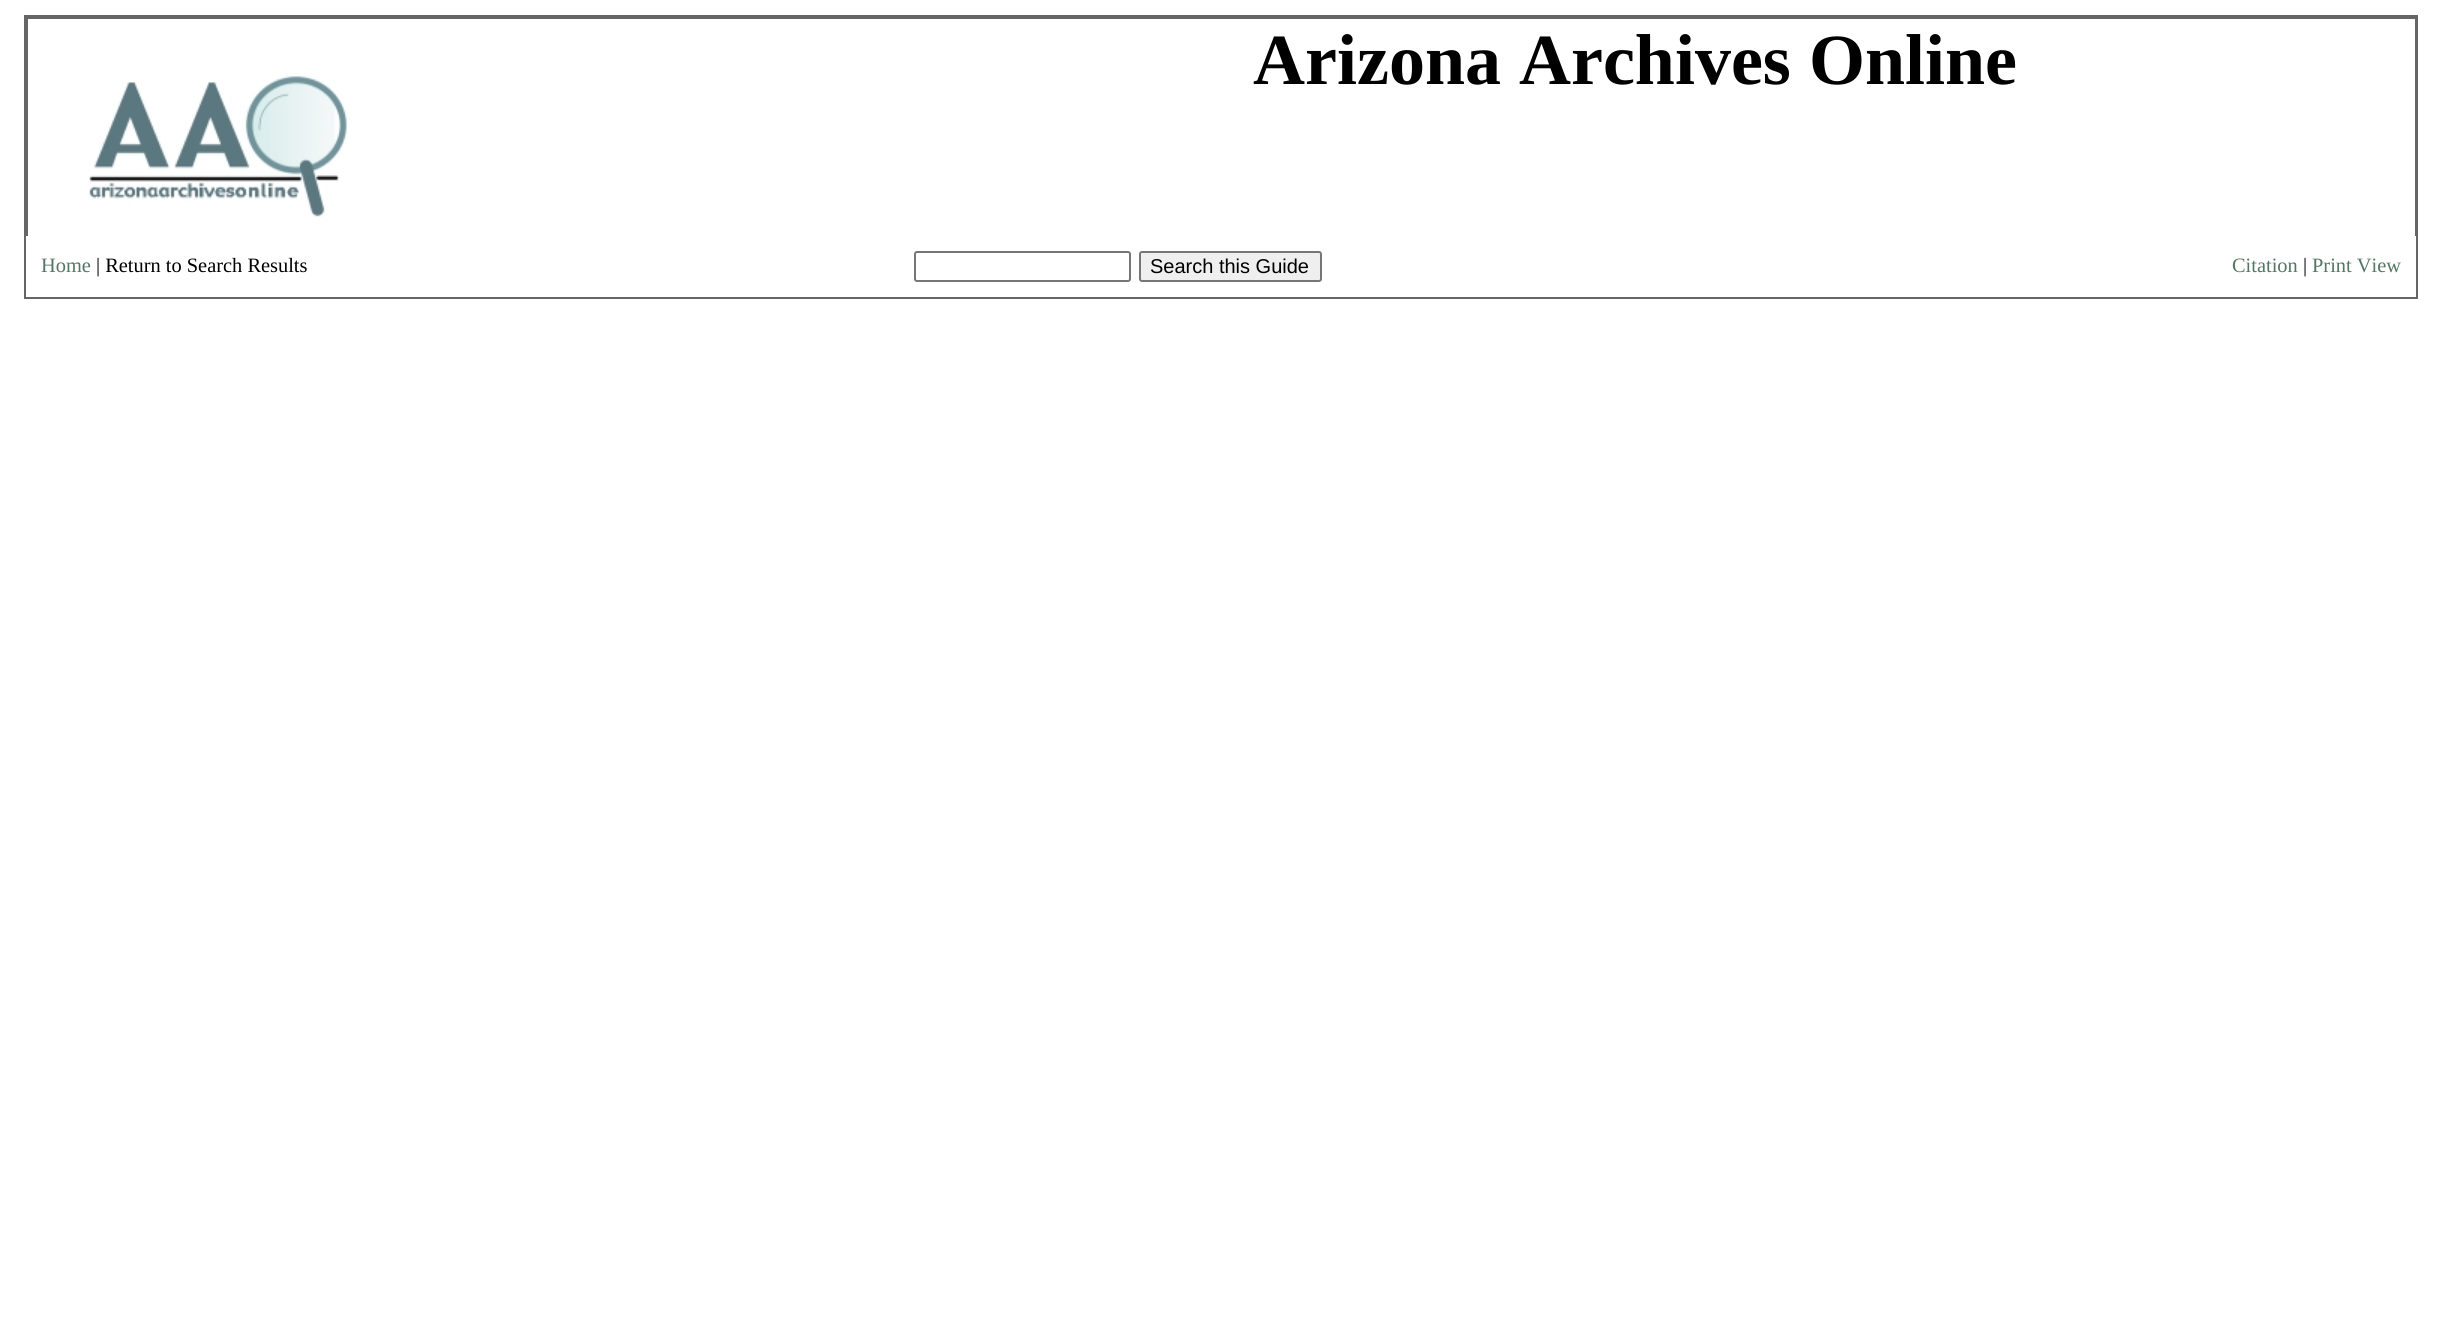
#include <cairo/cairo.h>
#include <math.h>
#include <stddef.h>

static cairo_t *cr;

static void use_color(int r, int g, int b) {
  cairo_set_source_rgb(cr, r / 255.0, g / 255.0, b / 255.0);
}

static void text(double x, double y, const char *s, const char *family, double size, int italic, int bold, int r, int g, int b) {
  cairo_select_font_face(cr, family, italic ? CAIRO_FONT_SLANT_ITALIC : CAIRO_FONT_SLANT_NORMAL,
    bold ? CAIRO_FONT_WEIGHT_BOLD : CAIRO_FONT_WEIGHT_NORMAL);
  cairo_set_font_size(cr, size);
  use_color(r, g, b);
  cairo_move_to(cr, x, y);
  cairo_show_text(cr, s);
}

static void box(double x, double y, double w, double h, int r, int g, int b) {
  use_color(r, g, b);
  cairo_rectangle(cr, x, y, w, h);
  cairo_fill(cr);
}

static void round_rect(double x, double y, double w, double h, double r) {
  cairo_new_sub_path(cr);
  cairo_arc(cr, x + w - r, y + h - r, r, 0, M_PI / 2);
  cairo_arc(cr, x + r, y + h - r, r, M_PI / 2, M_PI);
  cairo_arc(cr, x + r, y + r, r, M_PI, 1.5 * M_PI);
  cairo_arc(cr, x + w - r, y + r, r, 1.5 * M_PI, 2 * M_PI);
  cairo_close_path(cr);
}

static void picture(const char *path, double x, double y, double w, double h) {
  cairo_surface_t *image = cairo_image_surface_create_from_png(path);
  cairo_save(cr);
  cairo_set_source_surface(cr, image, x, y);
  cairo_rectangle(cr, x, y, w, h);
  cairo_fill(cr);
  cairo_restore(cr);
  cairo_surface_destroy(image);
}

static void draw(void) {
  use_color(255, 255, 255);
  cairo_paint(cr);
  cairo_rectangle(cr, 25, 16, 2392, 282);
  use_color(102, 102, 102);
  cairo_stroke(cr);
  box(26, 17, 2391, 2, 102, 102, 102);
  box(2415, 17, 1, 219, 102, 102, 102);
  box(26, 17, 2, 219, 102, 102, 102);
  picture("img_01.png", 88, 75, 260, 142);
  round_rect(915, 252, 215, 29, 2);
  use_color(118, 118, 118);
  cairo_stroke(cr);
  use_color(239, 239, 239);
  round_rect(1140, 252, 181, 29, 2);
  cairo_fill_preserve(cr);
  use_color(118, 118, 118);
  cairo_stroke(cr);
  text(1253, 84, "Arizona Archives Online", "Liberation Serif", 72, 0, 1, 0, 0, 0);
  text(41, 272, "Home", "Liberation Serif", 20.4, 0, 0, 85, 118, 101);
  text(96, 272, "| Return to Search Results", "Liberation Serif", 20.4, 0, 0, 0, 0, 0);
  text(1150, 273, "Search this Guide", "Liberation Sans", 20, 0, 0, 0, 0, 0);
  text(2232, 272, "Citation", "Liberation Serif", 20.4, 0, 0, 85, 118, 101);
  text(2303, 272, "|", "Liberation Serif", 20.4, 0, 0, 0, 0, 0);
  text(2312, 272, "Print View", "Liberation Serif", 20.4, 0, 0, 85, 118, 101);
}

int main(void) {
  cairo_surface_t *surface = cairo_image_surface_create(CAIRO_FORMAT_RGB24, 2441, 1330);
  cr = cairo_create(surface);
  cairo_font_options_t *options = cairo_font_options_create();
  cairo_font_options_set_hint_metrics(options, CAIRO_HINT_METRICS_OFF);
  cairo_font_options_set_hint_style(options, CAIRO_HINT_STYLE_NONE);
  cairo_set_font_options(cr, options);
  cairo_set_miter_limit(cr, 4);
  draw();
  cairo_surface_write_to_png(surface, "out.png");
  cairo_font_options_destroy(options);
  cairo_destroy(cr);
  cairo_surface_destroy(surface);
  return 0;
}
